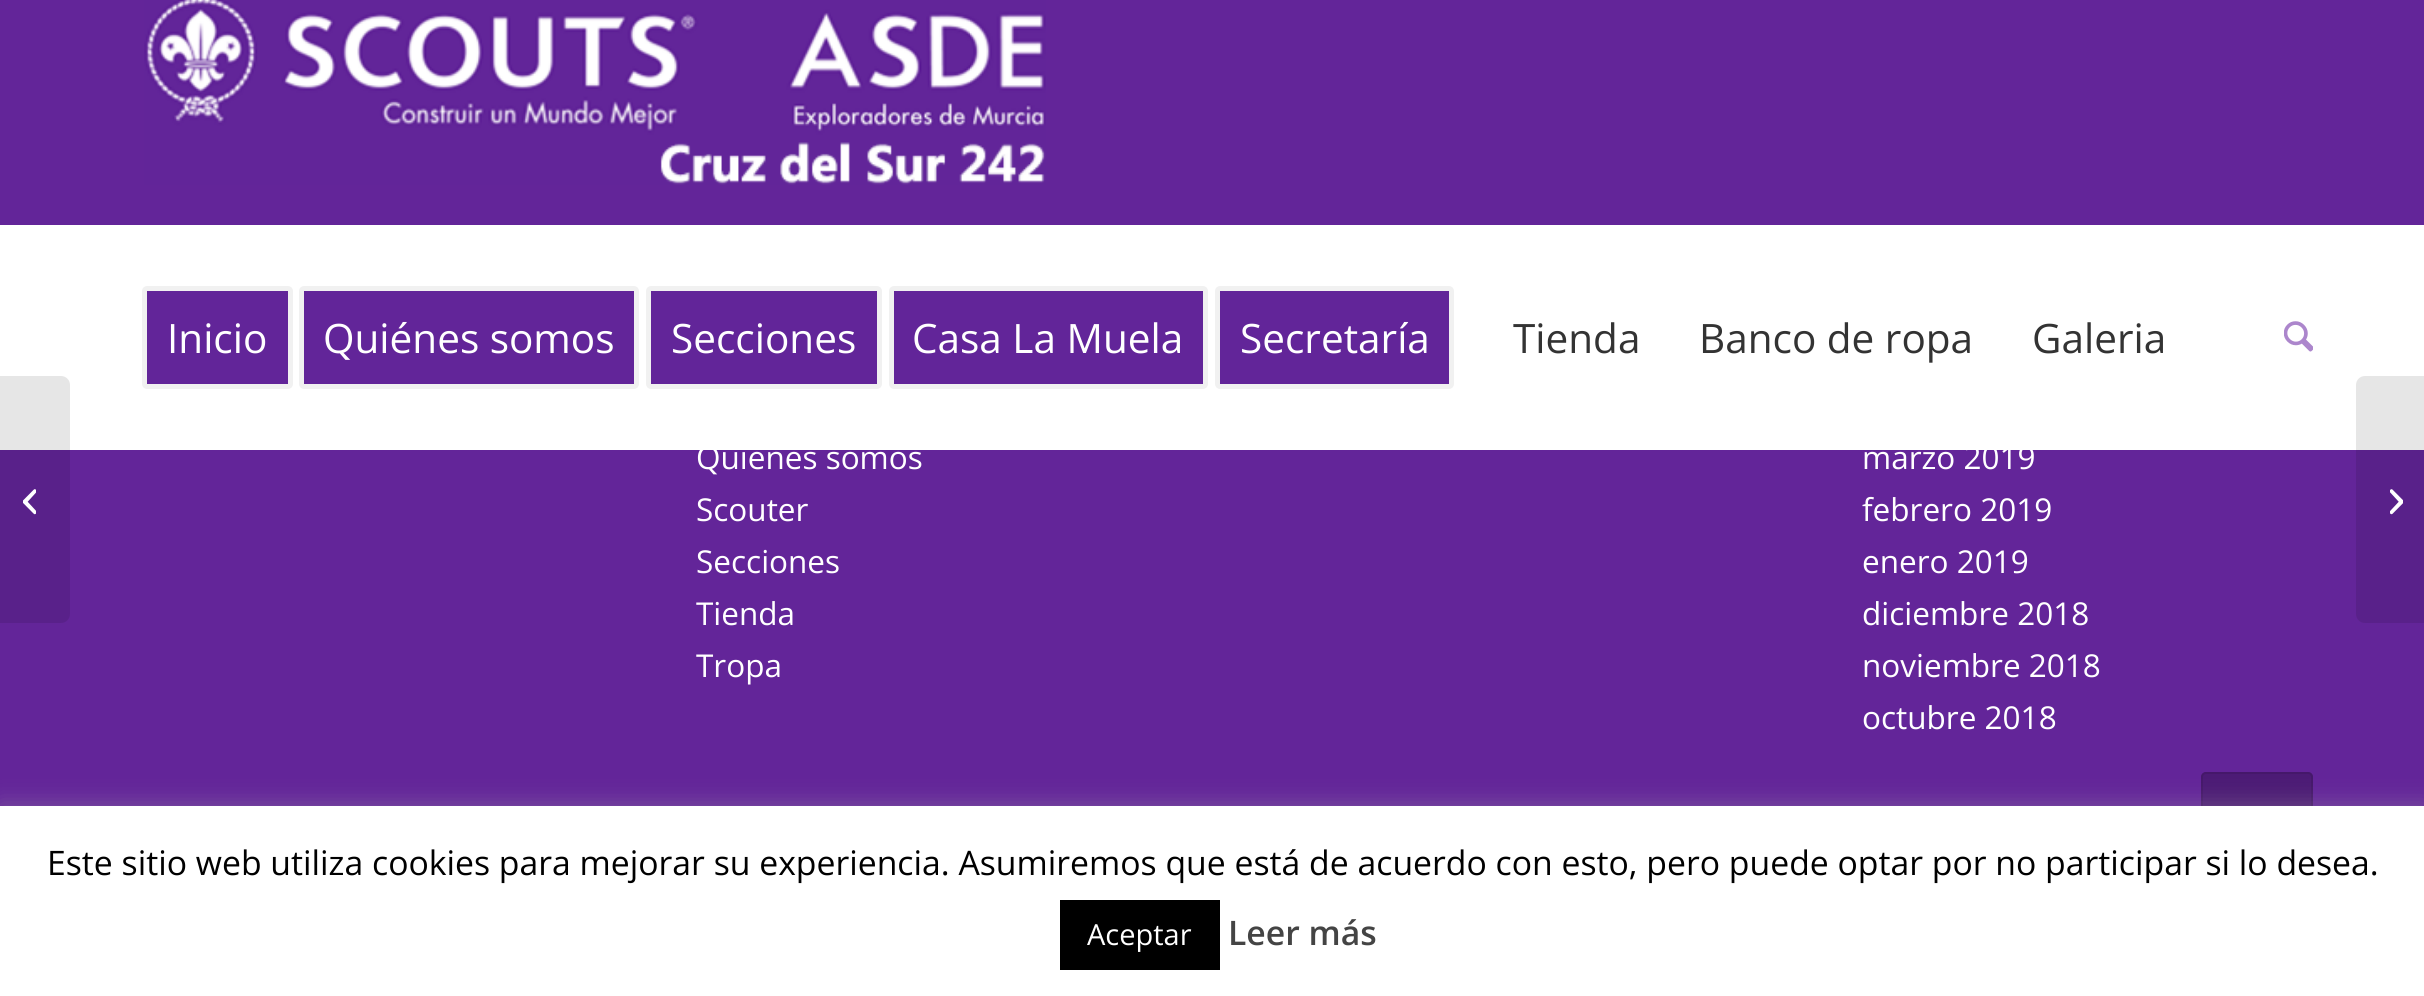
#include <cairo/cairo.h>
#include <math.h>
#include <stddef.h>

static cairo_t *cr;

static void use_color(int r, int g, int b) {
  cairo_set_source_rgb(cr, r / 255.0, g / 255.0, b / 255.0);
}

static void text(double x, double y, const char *s, const char *family, double size, int italic, int bold, int r, int g, int b) {
  cairo_select_font_face(cr, family, italic ? CAIRO_FONT_SLANT_ITALIC : CAIRO_FONT_SLANT_NORMAL,
    bold ? CAIRO_FONT_WEIGHT_BOLD : CAIRO_FONT_WEIGHT_NORMAL);
  cairo_set_font_size(cr, size);
  use_color(r, g, b);
  cairo_move_to(cr, x, y);
  cairo_show_text(cr, s);
}

static void box(double x, double y, double w, double h, int r, int g, int b) {
  use_color(r, g, b);
  cairo_rectangle(cr, x, y, w, h);
  cairo_fill(cr);
}

static void round_rect(double x, double y, double w, double h, double r) {
  cairo_new_sub_path(cr);
  cairo_arc(cr, x + w - r, y + h - r, r, 0, M_PI / 2);
  cairo_arc(cr, x + r, y + h - r, r, M_PI / 2, M_PI);
  cairo_arc(cr, x + r, y + r, r, M_PI, 1.5 * M_PI);
  cairo_arc(cr, x + w - r, y + r, r, 1.5 * M_PI, 2 * M_PI);
  cairo_close_path(cr);
}

static void shadow(double x, double y, double w, double h, double r, double blur, double alpha) {
  cairo_push_group_with_content(cr, CAIRO_CONTENT_ALPHA);
  cairo_set_operator(cr, CAIRO_OPERATOR_SOURCE);
  for (int i = 15; i >= -15 && fmin(w, h) + blur * i / 3 > 0; i -= 2) {
    double e = blur * i / 6;
    cairo_set_source_rgba(cr, 0, 0, 0, alpha * erfc((i - 1) / 8.5) / 2);
    round_rect(x - e, y - e, w + 2 * e, h + 2 * e, fmax(0, fmin(r + e + blur * .6, fmin(w, h) / 2 + e)));
    cairo_fill(cr);
  }
  cairo_pattern_t *soft = cairo_pop_group(cr);
  cairo_mask(cr, soft);
  cairo_pattern_destroy(soft);
}

static void picture(const char *path, double x, double y, double w, double h) {
  cairo_surface_t *image = cairo_image_surface_create_from_png(path);
  cairo_save(cr);
  cairo_set_source_surface(cr, image, x, y);
  cairo_rectangle(cr, x, y, w, h);
  cairo_fill(cr);
  cairo_restore(cr);
  cairo_surface_destroy(image);
}

static void draw(void) {
  use_color(99, 37, 153);
  cairo_paint(cr);
  picture("img_01.png", 144, 0, 902, 185);
  box(0, 225, 2424, 225, 255, 255, 255);
  use_color(98, 37, 153);
  round_rect(144.5, 288.5, 146, 98, 2.5);
  cairo_fill_preserve(cr);
  use_color(241, 241, 241);
  cairo_set_line_width(cr, 5);
  cairo_stroke(cr);
  use_color(98, 37, 153);
  round_rect(301.5, 288.5, 335, 98, 2.5);
  cairo_fill_preserve(cr);
  use_color(241, 241, 241);
  cairo_stroke(cr);
  use_color(98, 37, 153);
  round_rect(648.5, 288.5, 231, 98, 2.5);
  cairo_fill_preserve(cr);
  use_color(241, 241, 241);
  cairo_stroke(cr);
  use_color(98, 37, 153);
  round_rect(891.5, 288.5, 314, 98, 2.5);
  cairo_fill_preserve(cr);
  use_color(241, 241, 241);
  cairo_stroke(cr);
  use_color(98, 37, 153);
  round_rect(1217.5, 288.5, 234, 98, 2.5);
  cairo_fill_preserve(cr);
  use_color(241, 241, 241);
  cairo_stroke(cr);
  picture("img_02.png", 2284, 321, 29, 31);
  cairo_set_source_rgba(cr, 0, 0, 0, 0.1);
  cairo_new_path(cr);
  cairo_move_to(cr, 0, 376);
  cairo_line_to(cr, 61, 376);
  cairo_curve_to(cr, 66, 376, 70, 380, 70, 385);
  cairo_line_to(cr, 70, 614);
  cairo_curve_to(cr, 70, 619, 66, 623, 61, 623);
  cairo_line_to(cr, 0, 623);
  cairo_close_path(cr);
  cairo_fill(cr);
  picture("img_03.png", 23, 489, 13, 26);
  cairo_new_path(cr);
  cairo_move_to(cr, 2365, 376);
  cairo_line_to(cr, 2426, 376);
  cairo_line_to(cr, 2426, 623);
  cairo_line_to(cr, 2365, 623);
  cairo_curve_to(cr, 2360, 623, 2356, 619, 2356, 614);
  cairo_line_to(cr, 2356, 385);
  cairo_curve_to(cr, 2356, 380, 2360, 376, 2365, 376);
  cairo_close_path(cr);
  cairo_fill(cr);
  picture("img_04.png", 2390, 489, 13, 26);
  cairo_set_source_rgba(cr, 0.259, 0.094, 0.4, 0.7);
  round_rect(2201, 772, 112, 112, 5);
  cairo_fill(cr);
  round_rect(2202, 773, 110, 110, 4);
  cairo_set_line_width(cr, 2);
  cairo_stroke(cr);
  use_color(172, 171, 171);
  shadow(0, 803, 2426, 192, 0, 11, 0.3);
  box(0, 806, 2424, 190, 255, 255, 255);
  box(1060, 900, 160, 70, 0, 0, 0);
  text(167, 353, "Inicio", "Open Sans", 40.5, 0, 0, 255, 255, 255);
  text(323, 353, "Quiénes somos", "Open Sans", 40.5, 0, 0, 255, 255, 255);
  text(671, 353, "Secciones", "Open Sans", 40.5, 0, 0, 255, 255, 255);
  text(912, 353, "Casa La Muela", "Open Sans", 40.5, 0, 0, 255, 255, 255);
  text(1240, 353, "Secretaría", "Open Sans", 40.5, 0, 0, 255, 255, 255);
  text(1513, 353, "Tienda", "Open Sans", 40.5, 0, 0, 51, 51, 51);
  text(1699, 353, "Banco de ropa", "Open Sans", 40.5, 0, 0, 51, 51, 51);
  text(2032, 353, "Galeria", "Open Sans", 40.5, 0, 0, 51, 51, 51);
  text(696, 469, "Quiénes somos", "Open Sans", 31.5, 0, 0, 255, 255, 255);
  text(696, 521, "Scouter", "Open Sans", 31.5, 0, 0, 255, 255, 255);
  text(696, 573, "Secciones", "Open Sans", 31.5, 0, 0, 255, 255, 255);
  text(696, 625, "Tienda", "Open Sans", 31.5, 0, 0, 255, 255, 255);
  text(696, 677, "Tropa", "Open Sans", 31.5, 0, 0, 255, 255, 255);
  text(1862, 469, "marzo 2019", "Open Sans", 31.5, 0, 0, 255, 255, 255);
  text(1862, 521, "febrero 2019", "Open Sans", 31.5, 0, 0, 255, 255, 255);
  text(1862, 573, "enero 2019", "Open Sans", 31.5, 0, 0, 255, 255, 255);
  text(1862, 625, "diciembre 2018", "Open Sans", 31.5, 0, 0, 255, 255, 255);
  text(1862, 677, "noviembre 2018", "Open Sans", 31.5, 0, 0, 255, 255, 255);
  text(1862, 729, "octubre 2018", "Open Sans", 31.5, 0, 0, 255, 255, 255);
  text(47, 875, "Este sitio web utiliza cookies para mejorar su experiencia. Asumiremos que está de acuerdo con esto, pero puede optar por no participar si lo desea.", "Open Sans", 33.75, 0, 0, 0, 0, 0);
  text(1087, 945, "Aceptar", "Open Sans", 29, 0, 0, 255, 255, 255);
  text(1228, 945, "Leer más", "Open Sans SemiBold", 33.75, 0, 0, 68, 68, 68);
}

int main(void) {
  cairo_surface_t *surface = cairo_image_surface_create(CAIRO_FORMAT_RGB24, 2424, 996);
  cr = cairo_create(surface);
  cairo_font_options_t *options = cairo_font_options_create();
  cairo_font_options_set_hint_metrics(options, CAIRO_HINT_METRICS_OFF);
  cairo_font_options_set_hint_style(options, CAIRO_HINT_STYLE_NONE);
  cairo_set_font_options(cr, options);
  cairo_set_miter_limit(cr, 4);
  draw();
  cairo_surface_write_to_png(surface, "out.png");
  cairo_font_options_destroy(options);
  cairo_destroy(cr);
  cairo_surface_destroy(surface);
  return 0;
}
